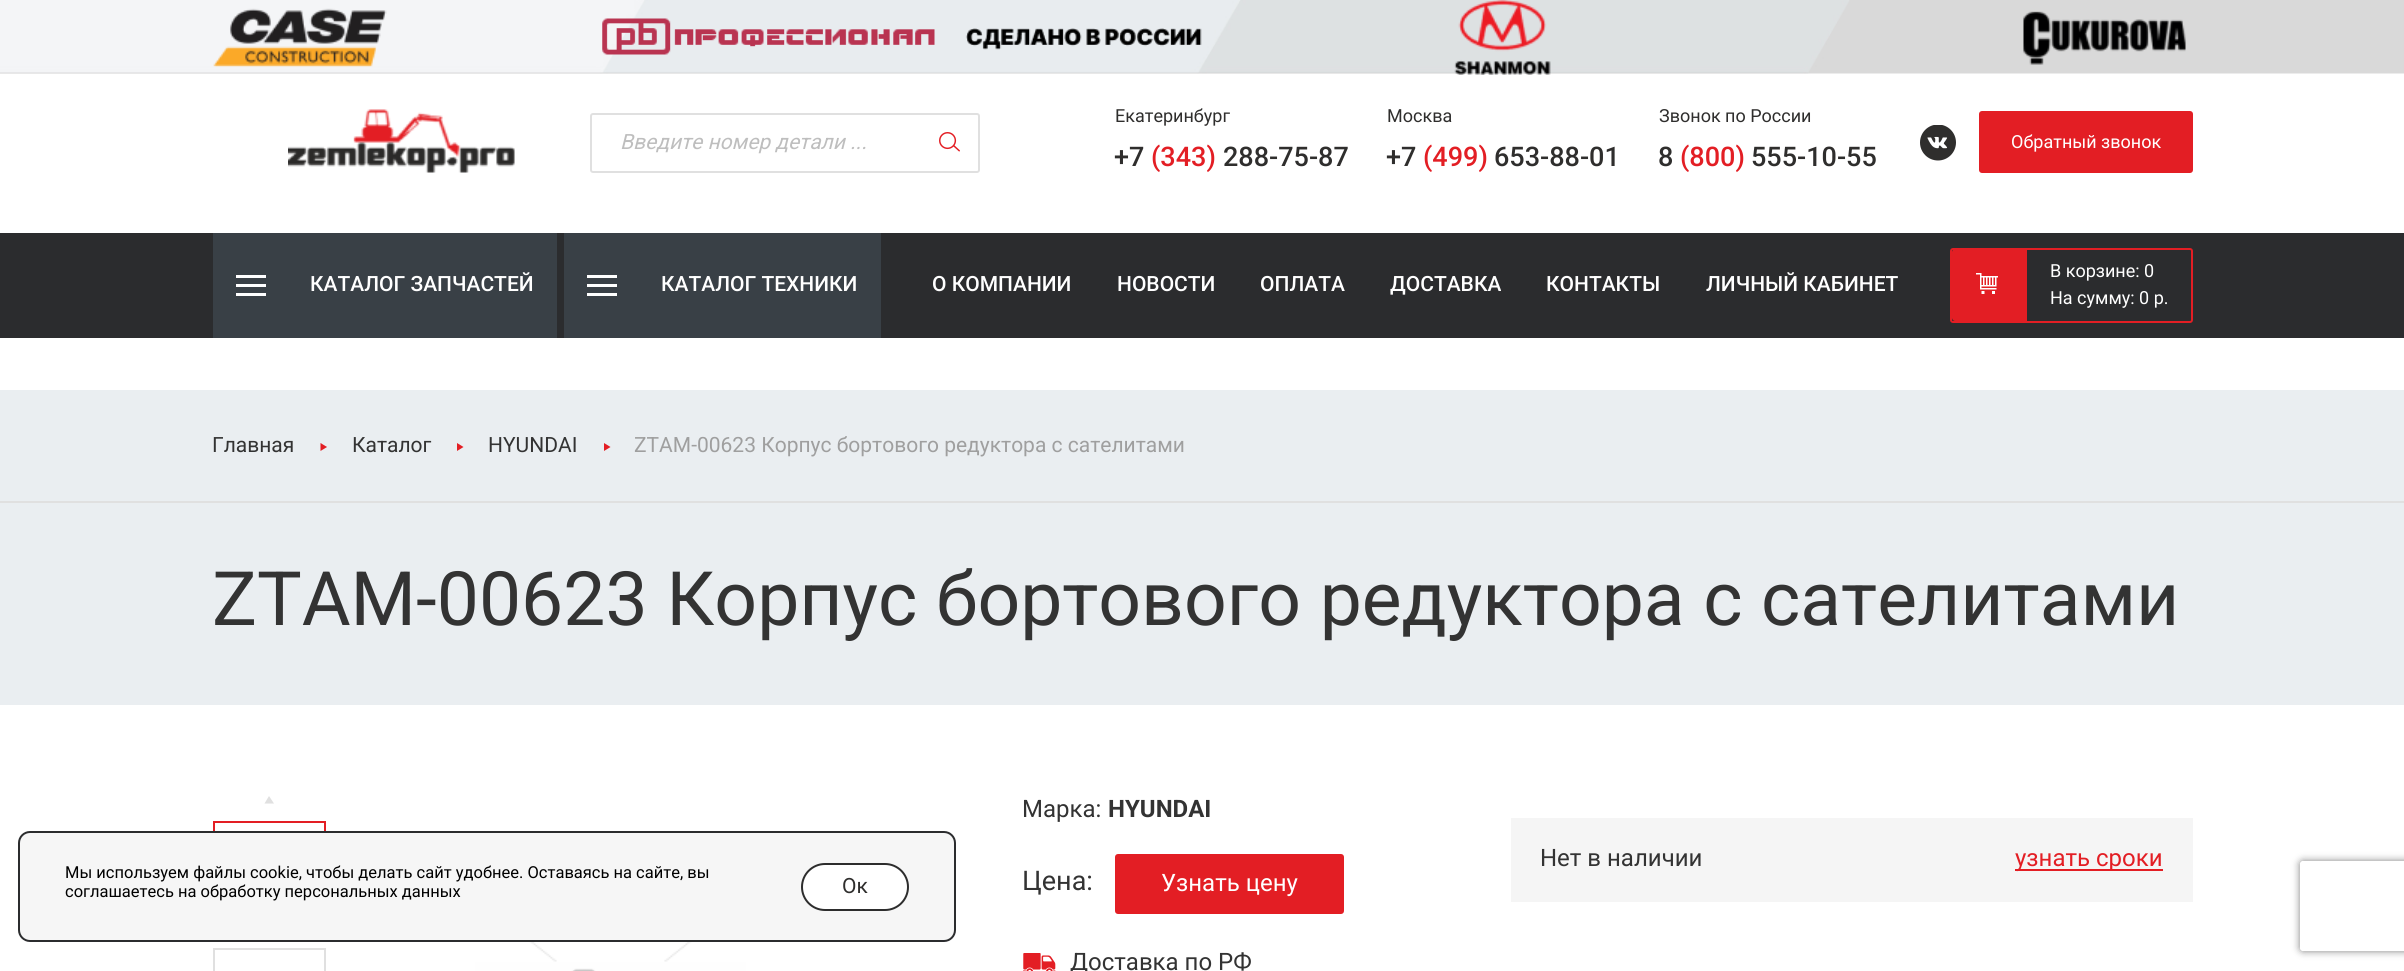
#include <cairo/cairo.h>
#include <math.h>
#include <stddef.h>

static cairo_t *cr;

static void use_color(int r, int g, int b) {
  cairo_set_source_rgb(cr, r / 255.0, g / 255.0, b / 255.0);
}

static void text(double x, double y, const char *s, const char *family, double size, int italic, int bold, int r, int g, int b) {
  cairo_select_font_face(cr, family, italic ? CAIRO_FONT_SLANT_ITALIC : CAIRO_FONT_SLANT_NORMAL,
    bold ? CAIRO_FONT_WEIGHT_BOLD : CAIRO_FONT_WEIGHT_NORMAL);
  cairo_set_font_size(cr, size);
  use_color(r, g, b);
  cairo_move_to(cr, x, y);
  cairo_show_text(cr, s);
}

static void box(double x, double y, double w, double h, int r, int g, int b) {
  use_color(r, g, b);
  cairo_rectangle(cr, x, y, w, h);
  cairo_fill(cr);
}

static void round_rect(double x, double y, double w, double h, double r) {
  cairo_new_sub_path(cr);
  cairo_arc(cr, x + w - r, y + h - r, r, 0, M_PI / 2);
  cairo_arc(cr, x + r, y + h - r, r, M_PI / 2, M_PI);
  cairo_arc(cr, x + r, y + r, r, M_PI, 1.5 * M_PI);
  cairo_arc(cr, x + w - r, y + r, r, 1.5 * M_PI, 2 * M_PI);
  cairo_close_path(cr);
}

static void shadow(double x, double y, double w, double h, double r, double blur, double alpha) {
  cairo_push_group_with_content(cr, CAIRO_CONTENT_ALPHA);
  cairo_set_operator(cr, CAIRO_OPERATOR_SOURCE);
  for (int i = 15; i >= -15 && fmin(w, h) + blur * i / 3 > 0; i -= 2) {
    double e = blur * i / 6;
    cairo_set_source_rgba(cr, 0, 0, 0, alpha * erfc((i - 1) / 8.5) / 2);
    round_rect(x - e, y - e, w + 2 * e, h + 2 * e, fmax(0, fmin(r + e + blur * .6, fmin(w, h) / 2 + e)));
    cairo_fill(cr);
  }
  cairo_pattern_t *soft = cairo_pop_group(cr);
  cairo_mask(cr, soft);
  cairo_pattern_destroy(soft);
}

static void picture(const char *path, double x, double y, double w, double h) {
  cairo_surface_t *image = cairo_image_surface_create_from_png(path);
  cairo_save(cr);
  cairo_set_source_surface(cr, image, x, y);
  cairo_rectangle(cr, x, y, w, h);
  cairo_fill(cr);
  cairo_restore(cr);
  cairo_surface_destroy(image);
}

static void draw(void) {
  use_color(255, 255, 255);
  cairo_paint(cr);
  picture("img_01.png", 0, 0, 2404, 74);
  picture("img_02.png", 213, 8, 174, 59);
  picture("img_03.png", 602, 18, 600, 37);
  picture("img_04.png", 1454, 0, 97, 75);
  picture("img_05.png", 2023, 11, 163, 54);
  picture("img_06.png", 288, 109, 227, 64);
  round_rect(591, 114, 388, 58, 2);
  use_color(224, 224, 224);
  cairo_stroke(cr);
  picture("img_07.png", 939, 132, 21, 20);
  picture("img_08.png", 1920, 125, 36, 36);
  use_color(227, 30, 36);
  round_rect(1979, 111, 214, 62, 3);
  cairo_fill(cr);
  box(0, 233, 2404, 105, 43, 44, 46);
  box(213, 233, 344, 105, 57, 64, 70);
  box(236, 275, 30, 3, 255, 255, 255);
  box(236, 284, 30, 3, 255, 255, 255);
  box(236, 293, 30, 3, 255, 255, 255);
  box(564, 233, 317, 105, 57, 64, 70);
  box(587, 275, 30, 3, 255, 255, 255);
  box(587, 284, 30, 3, 255, 255, 255);
  box(587, 293, 30, 3, 255, 255, 255);
  round_rect(1951, 249, 241, 73, 2);
  use_color(227, 30, 36);
  cairo_stroke(cr);
  cairo_new_path(cr);
  cairo_move_to(cr, 1955, 249);
  cairo_line_to(cr, 2027, 249);
  cairo_line_to(cr, 2027, 321);
  cairo_line_to(cr, 1955, 321);
  cairo_curve_to(cr, 1953.5, 321, 1952, 319.5, 1952, 318);
  cairo_line_to(cr, 1952, 252);
  cairo_curve_to(cr, 1952, 250.5, 1953.5, 249, 1955, 249);
  cairo_close_path(cr);
  cairo_fill(cr);
  picture("img_09.png", 1976, 273, 22, 21);
  box(0, 390, 2404, 315, 234, 238, 241);
  box(0, 501, 2404, 2, 224, 224, 224);
  use_color(227, 30, 36);
  cairo_new_path(cr);
  cairo_move_to(cr, 320.5, 443);
  cairo_line_to(cr, 327, 447);
  cairo_line_to(cr, 320.5, 451);
  cairo_close_path(cr);
  cairo_fill(cr);
  cairo_new_path(cr);
  cairo_move_to(cr, 457, 443);
  cairo_line_to(cr, 463.5, 447);
  cairo_line_to(cr, 457, 451);
  cairo_close_path(cr);
  cairo_fill(cr);
  cairo_new_path(cr);
  cairo_move_to(cr, 604, 443);
  cairo_line_to(cr, 610.5, 447);
  cairo_line_to(cr, 604, 451);
  cairo_close_path(cr);
  cairo_fill(cr);
  use_color(224, 224, 224);
  cairo_new_path(cr);
  cairo_move_to(cr, 269, 796);
  cairo_line_to(cr, 274, 803.5);
  cairo_line_to(cr, 264.5, 803.5);
  cairo_close_path(cr);
  cairo_fill(cr);
  cairo_rectangle(cr, 214, 822, 111, 110);
  use_color(227, 30, 36);
  cairo_stroke(cr);
  cairo_rectangle(cr, 214, 949, 111, 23);
  use_color(224, 224, 224);
  cairo_stroke(cr);
  picture("img_10.png", 461, 942, 300, 29);
  use_color(227, 30, 36);
  round_rect(1115, 854, 229, 60, 3);
  cairo_fill(cr);
  picture("img_11.png", 1023, 953, 33, 18);
  box(1511, 818, 682, 84, 245, 245, 245);
  box(2015, 869, 148, 2, 227, 30, 36);
  cairo_save(cr);
  cairo_set_fill_rule(cr, CAIRO_FILL_RULE_EVEN_ODD);
  cairo_new_path(cr);
  cairo_move_to(cr, 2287, 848);
  cairo_line_to(cr, 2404, 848);
  cairo_line_to(cr, 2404, 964);
  cairo_line_to(cr, 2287, 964);
  cairo_close_path(cr);
  cairo_move_to(cr, 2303, 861);
  cairo_line_to(cr, 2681, 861);
  cairo_curve_to(cr, 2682.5, 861, 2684, 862.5, 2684, 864);
  cairo_line_to(cr, 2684, 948);
  cairo_curve_to(cr, 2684, 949.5, 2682.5, 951, 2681, 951);
  cairo_line_to(cr, 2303, 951);
  cairo_curve_to(cr, 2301.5, 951, 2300, 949.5, 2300, 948);
  cairo_line_to(cr, 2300, 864);
  cairo_curve_to(cr, 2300, 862.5, 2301.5, 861, 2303, 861);
  cairo_close_path(cr);
  cairo_clip(cr);
  use_color(128, 128, 128);
  shadow(2300, 861, 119, 90, 3, 4, 1);
  cairo_restore(cr);
  use_color(246, 246, 246);
  round_rect(19, 832, 936, 109, 11);
  cairo_fill_preserve(cr);
  use_color(43, 44, 46);
  cairo_stroke(cr);
  use_color(255, 255, 255);
  round_rect(802, 864, 106, 46, 23);
  cairo_fill_preserve(cr);
  use_color(45, 45, 45);
  cairo_stroke(cr);
  text(620, 149, "Введите номер детали ...", "Roboto", 21, 1, 0, 190, 190, 190);
  text(1115, 122, "Екатеринбург", "Roboto", 18, 0, 0, 47, 46, 45);
  text(1114, 166, "+7", "Roboto Medium", 27, 0, 0, 47, 46, 45);
  text(1151, 166, "(343)", "Roboto Medium", 27, 0, 0, 227, 30, 36);
  text(1223, 166, "288-75-87", "Roboto Medium", 27, 0, 0, 47, 46, 45);
  text(1387, 122, "Москва", "Roboto", 18, 0, 0, 47, 46, 45);
  text(1386, 166, "+7", "Roboto Medium", 27, 0, 0, 47, 46, 45);
  text(1423, 166, "(499)", "Roboto Medium", 27, 0, 0, 227, 30, 36);
  text(1494, 166, "653-88-01", "Roboto Medium", 27, 0, 0, 47, 46, 45);
  text(1659, 122, "Звонок по России", "Roboto", 18, 0, 0, 47, 46, 45);
  text(1658, 166, "8", "Roboto Medium", 27, 0, 0, 47, 46, 45);
  text(1680, 166, "(800)", "Roboto Medium", 27, 0, 0, 227, 30, 36);
  text(1751, 166, "555-10-55", "Roboto Medium", 27, 0, 0, 47, 46, 45);
  text(2011, 148, "Обратный звонок", "Roboto", 18, 0, 0, 255, 255, 255);
  text(310, 291, "КАТАЛОГ ЗАПЧАСТЕЙ", "Roboto Medium", 21, 0, 0, 255, 255, 255);
  text(661, 291, "КАТАЛОГ ТЕХНИКИ", "Roboto Medium", 21, 0, 0, 255, 255, 255);
  text(932, 291, "О КОМПАНИИ", "Roboto Medium", 21, 0, 0, 255, 255, 255);
  text(1117, 291, "НОВОСТИ", "Roboto Medium", 21, 0, 0, 255, 255, 255);
  text(1260, 291, "ОПЛАТА", "Roboto Medium", 21, 0, 0, 255, 255, 255);
  text(1390, 291, "ДОСТАВКА", "Roboto Medium", 21, 0, 0, 255, 255, 255);
  text(1546, 291, "КОНТАКТЫ", "Roboto Medium", 21, 0, 0, 255, 255, 255);
  text(1706, 291, "ЛИЧНЫЙ КАБИНЕТ", "Roboto Medium", 21, 0, 0, 255, 255, 255);
  text(2050, 277, "В корзине: 0", "Roboto", 18, 0, 0, 255, 255, 255);
  text(2050, 304, "На сумму: 0 р.", "Roboto", 18, 0, 0, 255, 255, 255);
  text(212, 452, "Главная", "Roboto", 21, 0, 0, 51, 51, 51);
  text(352, 452, "Каталог", "Roboto", 21, 0, 0, 51, 51, 51);
  text(488, 452, "HYUNDAI", "Roboto", 21, 0, 0, 51, 51, 51);
  text(634, 452, "ZTAM-00623 Корпус бортового редуктора с сателитами", "Roboto", 21, 0, 0, 159, 159, 159);
  text(212, 625, "ZTAM-00623 Корпус бортового редуктора с сателитами", "Roboto", 75, 0, 0, 51, 51, 51);
  text(1022, 817, "Марка:", "Roboto", 24, 0, 0, 51, 51, 51);
  text(1108, 817, "HYUNDAI", "Roboto", 24, 0, 1, 51, 51, 51);
  text(1022, 890, "Цена:", "Roboto", 27, 0, 0, 51, 51, 51);
  text(1161, 891, "Узнать цену", "Roboto", 24, 0, 0, 255, 255, 255);
  text(1070, 970, "Доставка по РФ", "Roboto", 24, 0, 0, 51, 51, 51);
  text(1540, 866, "Нет в наличии", "Roboto", 24, 0, 0, 51, 51, 51);
  text(2015, 866, "узнать сроки", "Roboto", 24, 0, 0, 227, 30, 36);
  text(65, 878, "Мы используем файлы cookie, чтобы делать сайт удобнее. Оставаясь на сайте, вы", "Roboto", 16.5, 0, 0, 0, 0, 0);
  text(65, 897, "соглашаетесь на обработку персональных данных", "Roboto", 16.5, 0, 0, 0, 0, 0);
  text(842, 893, "Ок", "Roboto", 21, 0, 0, 47, 46, 45);
}

int main(void) {
  cairo_surface_t *surface = cairo_image_surface_create(CAIRO_FORMAT_RGB24, 2404, 971);
  cr = cairo_create(surface);
  cairo_font_options_t *options = cairo_font_options_create();
  cairo_font_options_set_hint_metrics(options, CAIRO_HINT_METRICS_OFF);
  cairo_font_options_set_hint_style(options, CAIRO_HINT_STYLE_NONE);
  cairo_set_font_options(cr, options);
  cairo_set_miter_limit(cr, 4);
  draw();
  cairo_surface_write_to_png(surface, "out.png");
  cairo_font_options_destroy(options);
  cairo_destroy(cr);
  cairo_surface_destroy(surface);
  return 0;
}
